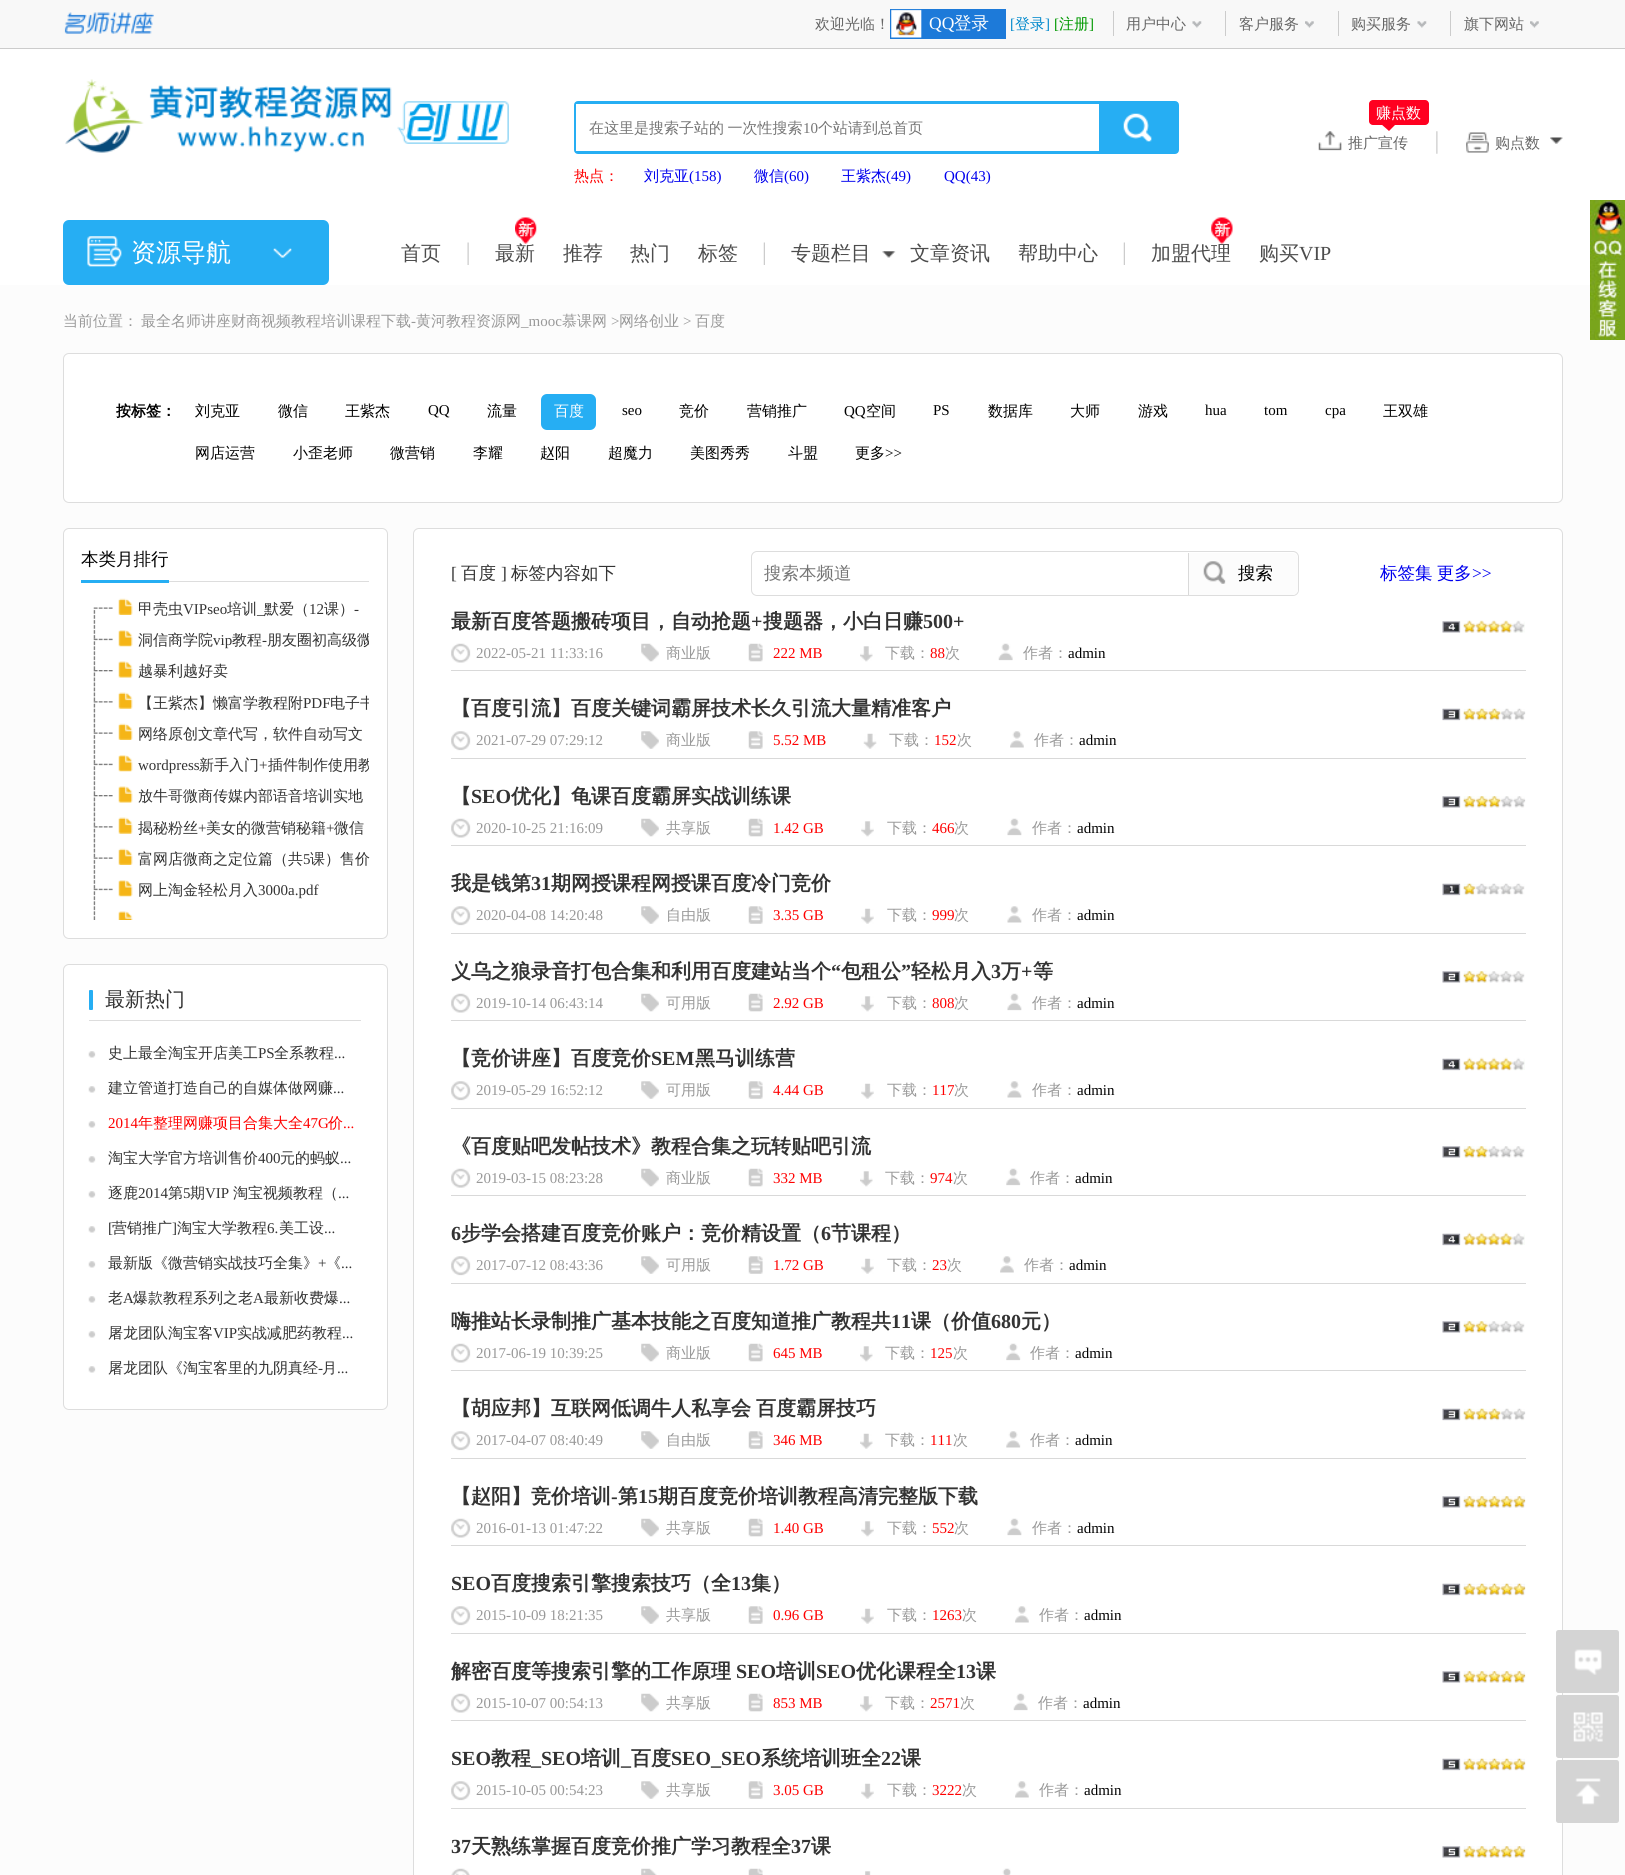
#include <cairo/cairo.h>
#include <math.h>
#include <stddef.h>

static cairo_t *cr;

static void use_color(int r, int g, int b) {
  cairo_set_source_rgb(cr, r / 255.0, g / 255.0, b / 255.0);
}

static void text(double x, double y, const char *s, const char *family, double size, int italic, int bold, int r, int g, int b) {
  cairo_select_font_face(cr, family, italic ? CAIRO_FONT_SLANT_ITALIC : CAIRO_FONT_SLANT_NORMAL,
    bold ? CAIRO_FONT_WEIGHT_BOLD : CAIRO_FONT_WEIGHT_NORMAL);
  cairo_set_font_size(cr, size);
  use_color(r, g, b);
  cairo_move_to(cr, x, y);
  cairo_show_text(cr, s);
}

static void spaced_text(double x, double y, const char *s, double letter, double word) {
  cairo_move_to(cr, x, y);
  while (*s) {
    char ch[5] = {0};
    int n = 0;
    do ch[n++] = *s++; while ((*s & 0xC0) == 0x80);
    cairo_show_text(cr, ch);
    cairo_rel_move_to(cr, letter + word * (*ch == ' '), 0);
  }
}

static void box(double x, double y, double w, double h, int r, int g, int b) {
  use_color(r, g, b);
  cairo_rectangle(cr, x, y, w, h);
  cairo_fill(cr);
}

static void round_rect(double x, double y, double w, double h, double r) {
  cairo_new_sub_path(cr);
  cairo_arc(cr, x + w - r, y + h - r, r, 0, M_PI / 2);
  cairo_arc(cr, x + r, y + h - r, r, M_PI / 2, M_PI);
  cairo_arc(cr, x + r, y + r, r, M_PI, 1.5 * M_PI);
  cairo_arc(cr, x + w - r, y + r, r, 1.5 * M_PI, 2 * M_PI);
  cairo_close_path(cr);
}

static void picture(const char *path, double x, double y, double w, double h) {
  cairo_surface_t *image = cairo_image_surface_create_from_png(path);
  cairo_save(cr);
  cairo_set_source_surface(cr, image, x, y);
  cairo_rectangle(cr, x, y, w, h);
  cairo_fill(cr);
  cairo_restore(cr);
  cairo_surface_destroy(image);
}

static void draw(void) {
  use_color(255, 255, 255);
  cairo_paint(cr);
  box(0, 0, 1625, 48, 248, 248, 248);
  box(0, 48, 1625, 1, 204, 204, 204);
  picture("img_01.png", 64, 12, 90, 22);
  box(890, 9, 116, 30, 29, 122, 217);
  picture("img_02.png", 891, 9, 31, 29);
  picture("img_03.png", 1192, 21, 10, 7);
  box(1113, 11, 1, 25, 204, 204, 204);
  picture("img_04.png", 1305, 21, 9, 7);
  box(1225, 11, 1, 25, 204, 204, 204);
  picture("img_03.png", 1417, 21, 10, 7);
  box(1338, 11, 1, 25, 204, 204, 204);
  picture("img_05.png", 1530, 21, 9, 7);
  box(1450, 11, 1, 25, 204, 204, 204);
  picture("img_06.png", 65, 79, 327, 74);
  picture("img_07.png", 397, 101, 112, 43);
  round_rect(575.5, 102.5, 602, 50, 2.5);
  use_color(38, 174, 243);
  cairo_set_line_width(cr, 3);
  cairo_stroke(cr);
  box(576, 104, 2, 47, 255, 255, 255);
  box(1099, 104, 77, 47, 38, 174, 243);
  picture("img_08.png", 1123, 113, 29, 29);
  picture("img_09.png", 1318, 131, 24, 20);
  use_color(255, 0, 32);
  round_rect(1369, 100, 60, 25, 4);
  cairo_fill(cr);
  cairo_new_path(cr);
  cairo_move_to(cr, 1381, 124);
  cairo_line_to(cr, 1396, 124);
  cairo_line_to(cr, 1389, 131);
  cairo_close_path(cr);
  cairo_fill(cr);
  picture("img_10.png", 1436, 131, 2, 23);
  picture("img_11.png", 1466, 132, 23, 21);
  picture("img_12.png", 1550, 137, 13, 7);
  use_color(38, 174, 243);
  round_rect(63, 220, 266, 65, 6);
  cairo_fill(cr);
  picture("img_13.png", 87, 236, 35, 31);
  picture("img_14.png", 273, 248, 19, 10);
  picture("img_15.png", 467, 242, 2, 23);
  picture("img_17.png", 763, 242, 2, 23);
  picture("img_18.png", 882, 251, 14, 7);
  picture("img_17.png", 1123, 242, 2, 23);
  box(0, 285, 1625, 1590, 252, 252, 252);
  picture("img_20.png", 1590, 200, 35, 140);
  use_color(255, 255, 255);
  round_rect(63.5, 353.5, 1499, 149, 5.5);
  cairo_fill_preserve(cr);
  use_color(221, 221, 221);
  cairo_set_line_width(cr, 1);
  cairo_stroke(cr);
  use_color(38, 174, 243);
  round_rect(541, 394, 55, 36, 6);
  cairo_fill(cr);
  use_color(255, 255, 255);
  round_rect(63.5, 528.5, 324, 410, 5.5);
  cairo_fill_preserve(cr);
  use_color(221, 221, 221);
  cairo_stroke(cr);
  box(169, 581, 200, 1, 221, 221, 221);
  box(81, 580, 88, 3, 38, 174, 243);
  picture("img_21.png", 93, 607, 20, 32);
  picture("img_22.png", 118, 598, 15, 17);
  picture("img_23.png", 93, 638, 20, 32);
  picture("img_24.png", 118, 630, 15, 17);
  picture("img_25.png", 93, 670, 20, 32);
  picture("img_26.png", 118, 661, 15, 17);
  picture("img_27.png", 93, 701, 20, 32);
  picture("img_28.png", 118, 692, 15, 17);
  picture("img_29.png", 93, 732, 20, 32);
  picture("img_22.png", 118, 723, 15, 17);
  picture("img_23.png", 93, 763, 20, 32);
  picture("img_24.png", 118, 755, 15, 17);
  picture("img_25.png", 93, 795, 20, 32);
  picture("img_26.png", 118, 786, 15, 17);
  picture("img_27.png", 93, 826, 20, 32);
  picture("img_28.png", 118, 817, 15, 17);
  picture("img_29.png", 93, 857, 20, 32);
  picture("img_22.png", 118, 848, 15, 17);
  picture("img_23.png", 93, 888, 20, 32);
  picture("img_24.png", 118, 880, 15, 17);
  picture("img_30.png", 118, 911, 15, 9);
  use_color(255, 255, 255);
  round_rect(63.5, 964.5, 324, 445, 5.5);
  cairo_fill_preserve(cr);
  use_color(221, 221, 221);
  cairo_stroke(cr);
  box(89, 1020, 272, 1, 221, 221, 221);
  use_color(38, 174, 243);
  round_rect(89, 990, 4, 20, 1);
  cairo_fill(cr);
  picture("img_31.png", 88, 1051, 8, 7);
  picture("img_31.png", 88, 1086, 8, 7);
  picture("img_31.png", 88, 1121, 8, 7);
  picture("img_31.png", 88, 1156, 8, 7);
  picture("img_31.png", 88, 1191, 8, 7);
  picture("img_31.png", 88, 1226, 8, 7);
  picture("img_31.png", 88, 1261, 8, 7);
  picture("img_31.png", 88, 1296, 8, 7);
  picture("img_31.png", 88, 1331, 8, 7);
  picture("img_31.png", 88, 1366, 8, 7);
  use_color(255, 255, 255);
  round_rect(413.5, 528.5, 1149, 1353, 5.5);
  cairo_fill_preserve(cr);
  use_color(221, 221, 221);
  cairo_stroke(cr);
  round_rect(751.5, 551.5, 547, 44, 5.5);
  cairo_stroke(cr);
  use_color(252, 252, 252);
  cairo_new_path(cr);
  cairo_move_to(cr, 1188, 553);
  cairo_line_to(cr, 1292, 553);
  cairo_curve_to(cr, 1295.5, 553, 1298, 555.5, 1298, 559);
  cairo_line_to(cr, 1298, 589);
  cairo_curve_to(cr, 1298, 592.5, 1295.5, 595, 1292, 595);
  cairo_line_to(cr, 1188, 595);
  cairo_close_path(cr);
  cairo_fill(cr);
  picture("img_32.png", 1203, 561, 23, 23);
  box(1188, 553, 1, 42, 217, 217, 217);
  box(451, 670, 1075, 1, 217, 217, 217);
  picture("img_33.png", 1442, 620, 83, 13);
  picture("img_34.png", 451, 643, 20, 20);
  picture("img_35.png", 641, 643, 18, 19);
  picture("img_36.png", 748, 643, 15, 19);
  picture("img_37.png", 860, 646, 13, 16);
  picture("img_38.png", 998, 643, 15, 18);
  box(451, 758, 1075, 1, 217, 217, 217);
  picture("img_39.png", 1442, 708, 84, 13);
  picture("img_40.png", 451, 731, 20, 20);
  picture("img_41.png", 641, 731, 18, 18);
  picture("img_42.png", 748, 731, 15, 18);
  picture("img_43.png", 863, 733, 14, 16);
  picture("img_44.png", 1010, 731, 14, 17);
  box(451, 845, 1075, 1, 217, 217, 217);
  picture("img_45.png", 1442, 796, 84, 12);
  picture("img_34.png", 451, 818, 20, 20);
  picture("img_35.png", 641, 818, 18, 19);
  picture("img_36.png", 748, 818, 15, 19);
  picture("img_46.png", 861, 821, 13, 16);
  picture("img_47.png", 1007, 818, 15, 18);
  box(451, 933, 1075, 1, 217, 217, 217);
  picture("img_48.png", 1442, 883, 83, 13);
  picture("img_40.png", 451, 906, 20, 20);
  picture("img_41.png", 641, 906, 18, 18);
  picture("img_42.png", 748, 906, 15, 18);
  picture("img_49.png", 861, 908, 13, 16);
  picture("img_50.png", 1007, 906, 15, 17);
  box(451, 1020, 1075, 1, 217, 217, 217);
  picture("img_51.png", 1442, 971, 83, 12);
  picture("img_34.png", 451, 993, 20, 20);
  picture("img_35.png", 641, 993, 18, 19);
  picture("img_36.png", 748, 993, 15, 19);
  picture("img_46.png", 861, 996, 13, 16);
  picture("img_47.png", 1007, 993, 15, 18);
  box(451, 1108, 1075, 1, 217, 217, 217);
  picture("img_52.png", 1442, 1057, 83, 14);
  picture("img_40.png", 451, 1081, 20, 20);
  picture("img_41.png", 641, 1081, 18, 18);
  picture("img_42.png", 748, 1081, 15, 18);
  picture("img_49.png", 861, 1083, 13, 16);
  picture("img_50.png", 1007, 1081, 15, 17);
  box(451, 1195, 1075, 1, 217, 217, 217);
  picture("img_51.png", 1442, 1146, 83, 12);
  picture("img_53.png", 451, 1168, 20, 20);
  picture("img_54.png", 641, 1168, 18, 19);
  picture("img_55.png", 748, 1168, 15, 19);
  picture("img_56.png", 860, 1171, 13, 16);
  picture("img_57.png", 1006, 1168, 15, 18);
  box(451, 1283, 1075, 1, 217, 217, 217);
  picture("img_52.png", 1442, 1232, 83, 14);
  picture("img_40.png", 451, 1256, 20, 20);
  picture("img_41.png", 641, 1256, 18, 18);
  picture("img_42.png", 748, 1256, 15, 18);
  picture("img_49.png", 861, 1258, 13, 16);
  picture("img_58.png", 1000, 1256, 14, 17);
  box(451, 1370, 1075, 1, 217, 217, 217);
  picture("img_51.png", 1442, 1321, 83, 12);
  picture("img_34.png", 451, 1343, 20, 20);
  picture("img_35.png", 641, 1343, 18, 19);
  picture("img_36.png", 748, 1343, 15, 19);
  picture("img_37.png", 860, 1346, 13, 16);
  picture("img_59.png", 1006, 1343, 15, 18);
  box(451, 1458, 1075, 1, 217, 217, 217);
  picture("img_39.png", 1442, 1408, 84, 13);
  picture("img_40.png", 451, 1431, 20, 20);
  picture("img_41.png", 641, 1431, 18, 18);
  picture("img_42.png", 748, 1431, 15, 18);
  picture("img_60.png", 860, 1433, 13, 16);
  picture("img_61.png", 1006, 1431, 15, 17);
  box(451, 1545, 1075, 1, 217, 217, 217);
  picture("img_62.png", 1442, 1496, 84, 12);
  picture("img_34.png", 451, 1518, 20, 20);
  picture("img_35.png", 641, 1518, 18, 19);
  picture("img_36.png", 748, 1518, 15, 19);
  picture("img_46.png", 861, 1521, 13, 16);
  picture("img_47.png", 1007, 1518, 15, 18);
  box(451, 1633, 1075, 1, 217, 217, 217);
  picture("img_63.png", 1442, 1583, 84, 13);
  picture("img_40.png", 451, 1606, 20, 20);
  picture("img_41.png", 641, 1606, 18, 18);
  picture("img_42.png", 748, 1606, 15, 18);
  picture("img_49.png", 861, 1608, 13, 16);
  picture("img_64.png", 1015, 1606, 14, 17);
  box(451, 1720, 1075, 1, 217, 217, 217);
  picture("img_62.png", 1442, 1671, 84, 12);
  picture("img_34.png", 451, 1693, 20, 20);
  picture("img_35.png", 641, 1693, 18, 19);
  picture("img_36.png", 748, 1693, 15, 19);
  picture("img_37.png", 860, 1696, 13, 16);
  picture("img_65.png", 1013, 1693, 15, 18);
  box(451, 1808, 1075, 1, 217, 217, 217);
  picture("img_63.png", 1442, 1758, 84, 13);
  picture("img_40.png", 451, 1781, 20, 20);
  picture("img_41.png", 641, 1781, 18, 18);
  picture("img_42.png", 748, 1781, 15, 18);
  picture("img_49.png", 861, 1783, 13, 16);
  picture("img_64.png", 1015, 1781, 14, 17);
  picture("img_62.png", 1442, 1846, 84, 12);
  picture("img_66.png", 451, 1868, 19, 7);
  picture("img_67.png", 641, 1868, 16, 7);
  picture("img_68.png", 748, 1868, 15, 7);
  picture("img_69.png", 865, 1871, 6, 4);
  picture("img_70.png", 1002, 1868, 9, 7);
  use_color(212, 212, 212);
  round_rect(1556, 1630, 63, 63, 2.5);
  cairo_fill(cr);
  picture("img_71.png", 1574, 1649, 28, 26);
  round_rect(1556, 1695, 63, 63, 2.5);
  cairo_fill(cr);
  picture("img_72.png", 1573, 1712, 30, 30);
  round_rect(1556, 1760, 63, 63, 2.5);
  cairo_fill(cr);
  picture("img_73.png", 1575, 1778, 26, 27);
  text(815, 29, "欢迎光临！", "WenQuanYi Zen Hei Medium", 15, 0, 0, 102, 102, 102);
  text(929, 29, "QQ", "Liberation Serif", 17.5, 0, 0, 255, 255, 255);
  text(954, 29, "登录", "WenQuanYi Zen Hei Medium", 17.5, 0, 0, 255, 255, 255);
  text(1010, 29, "[", "Liberation Serif", 15, 0, 0, 0, 136, 204);
  text(1015, 29, "登录", "WenQuanYi Zen Hei Medium", 15, 0, 0, 0, 136, 204);
  text(1045, 29, "]", "Liberation Serif", 15, 0, 0, 0, 136, 204);
  text(1054, 29, "[", "Liberation Serif", 15, 0, 0, 0, 153, 0);
  text(1059, 29, "注册", "WenQuanYi Zen Hei Medium", 15, 0, 0, 0, 153, 0);
  text(1089, 29, "]", "Liberation Serif", 15, 0, 0, 0, 153, 0);
  text(1126, 29, "用户中心", "WenQuanYi Zen Hei Medium", 15, 0, 0, 102, 102, 102);
  text(1239, 29, "客户服务", "WenQuanYi Zen Hei Medium", 15, 0, 0, 102, 102, 102);
  text(1351, 29, "购买服务", "WenQuanYi Zen Hei Medium", 15, 0, 0, 102, 102, 102);
  text(1464, 29, "旗下网站", "WenQuanYi Zen Hei Medium", 15, 0, 0, 102, 102, 102);
  use_color(117, 117, 117);
  spaced_text(589, 133, "在这里是搜索子站的 一次性搜索", 0, -1);
  text(803, 133, "10", "Liberation Serif", 15, 0, 0, 117, 117, 117);
  text(818, 133, "个站请到总首页", "WenQuanYi Zen Hei Medium", 15, 0, 0, 117, 117, 117);
  text(574, 181, "热点：", "WenQuanYi Zen Hei Medium", 15, 0, 0, 255, 0, 0);
  text(644, 181, "刘克亚", "WenQuanYi Zen Hei Medium", 15, 0, 0, 0, 0, 238);
  text(689, 181, "(158)", "Liberation Serif", 15, 0, 0, 0, 0, 238);
  text(754, 181, "微信", "WenQuanYi Zen Hei Medium", 15, 0, 0, 0, 0, 238);
  text(784, 181, "(60)", "Liberation Serif", 15, 0, 0, 0, 0, 238);
  text(841, 181, "王紫杰", "WenQuanYi Zen Hei Medium", 15, 0, 0, 0, 0, 238);
  text(886, 181, "(49)", "Liberation Serif", 15, 0, 0, 0, 0, 238);
  text(944, 181, "QQ(43)", "Liberation Serif", 15, 0, 0, 0, 0, 238);
  text(1376, 118, "赚点数", "WenQuanYi Zen Hei Medium", 15, 0, 0, 255, 255, 255);
  text(1348, 148, "推广宣传", "WenQuanYi Zen Hei Medium", 15, 0, 0, 102, 102, 102);
  text(1495, 148, "购点数", "WenQuanYi Zen Hei Medium", 15, 0, 0, 102, 102, 102);
  text(131, 261, "资源导航", "WenQuanYi Zen Hei Medium", 25, 0, 0, 255, 255, 255);
  text(401, 260, "首页", "WenQuanYi Zen Hei Medium", 20, 0, 0, 76, 76, 76);
  text(495, 260, "最新", "WenQuanYi Zen Hei Medium", 20, 0, 0, 76, 76, 76);
  picture("img_16.png", 515, 217, 22, 27);
  text(563, 260, "推荐", "WenQuanYi Zen Hei Medium", 20, 0, 0, 76, 76, 76);
  text(630, 260, "热门", "WenQuanYi Zen Hei Medium", 20, 0, 0, 76, 76, 76);
  text(698, 260, "标签", "WenQuanYi Zen Hei Medium", 20, 0, 0, 76, 76, 76);
  text(791, 260, "专题栏目", "WenQuanYi Zen Hei Medium", 20, 0, 0, 76, 76, 76);
  text(910, 260, "文章资讯", "WenQuanYi Zen Hei Medium", 20, 0, 0, 76, 76, 76);
  text(1018, 260, "帮助中心", "WenQuanYi Zen Hei Medium", 20, 0, 0, 76, 76, 76);
  text(1151, 260, "加盟代理", "WenQuanYi Zen Hei Medium", 20, 0, 0, 76, 76, 76);
  picture("img_19.png", 1211, 217, 22, 27);
  text(1259, 260, "购买", "WenQuanYi Zen Hei Medium", 20, 0, 0, 76, 76, 76);
  text(1299, 260, "VIP", "Liberation Serif", 20, 0, 0, 76, 76, 76);
  text(63, 326, "当前位置：", "WenQuanYi Zen Hei Medium", 15, 0, 0, 153, 153, 153);
  text(141, 326, "最全名师讲座财商视频教程培训课程下载", "WenQuanYi Zen Hei Medium", 15, 0, 0, 153, 153, 153);
  text(411, 326, "-", "Liberation Serif", 15, 0, 0, 153, 153, 153);
  text(416, 326, "黄河教程资源网", "WenQuanYi Zen Hei Medium", 15, 0, 0, 153, 153, 153);
  text(521, 326, "_mooc", "Liberation Serif", 15, 0, 0, 153, 153, 153);
  text(562, 326, "慕课网", "WenQuanYi Zen Hei Medium", 15, 0, 0, 153, 153, 153);
  text(611, 326, ">", "Liberation Serif", 15, 0, 0, 153, 153, 153);
  text(619, 326, "网络创业", "WenQuanYi Zen Hei Medium", 15, 0, 0, 153, 153, 153);
  text(683, 326, ">", "Liberation Serif", 15, 0, 0, 153, 153, 153);
  text(695, 326, "百度", "WenQuanYi Zen Hei Medium", 15, 0, 0, 153, 153, 153);
  text(116, 416, "按标签：", "WenQuanYi Zen Hei", 15, 0, 1, 0, 0, 0);
  text(195, 416, "刘克亚", "WenQuanYi Zen Hei Medium", 15, 0, 0, 0, 0, 0);
  text(278, 416, "微信", "WenQuanYi Zen Hei Medium", 15, 0, 0, 0, 0, 0);
  text(345, 416, "王紫杰", "WenQuanYi Zen Hei Medium", 15, 0, 0, 0, 0, 0);
  text(428, 415, "QQ", "Liberation Serif", 15, 0, 0, 0, 0, 0);
  text(487, 416, "流量", "WenQuanYi Zen Hei Medium", 15, 0, 0, 0, 0, 0);
  text(554, 416, "百度", "WenQuanYi Zen Hei Medium", 15, 0, 0, 255, 255, 255);
  text(622, 415, "seo", "Liberation Serif", 15, 0, 0, 0, 0, 0);
  text(679, 416, "竞价", "WenQuanYi Zen Hei Medium", 15, 0, 0, 0, 0, 0);
  text(747, 416, "营销推广", "WenQuanYi Zen Hei Medium", 15, 0, 0, 0, 0, 0);
  text(844, 416, "QQ", "Liberation Serif", 15, 0, 0, 0, 0, 0);
  text(866, 416, "空间", "WenQuanYi Zen Hei Medium", 15, 0, 0, 0, 0, 0);
  text(933, 415, "PS", "Liberation Serif", 15, 0, 0, 0, 0, 0);
  text(988, 416, "数据库", "WenQuanYi Zen Hei Medium", 15, 0, 0, 0, 0, 0);
  text(1070, 416, "大师", "WenQuanYi Zen Hei Medium", 15, 0, 0, 0, 0, 0);
  text(1138, 416, "游戏", "WenQuanYi Zen Hei Medium", 15, 0, 0, 0, 0, 0);
  text(1205, 415, "hua", "Liberation Serif", 15, 0, 0, 0, 0, 0);
  text(1264, 415, "tom", "Liberation Serif", 15, 0, 0, 0, 0, 0);
  text(1325, 415, "cpa", "Liberation Serif", 15, 0, 0, 0, 0, 0);
  text(1383, 416, "王双雄", "WenQuanYi Zen Hei Medium", 15, 0, 0, 0, 0, 0);
  text(195, 458, "网店运营", "WenQuanYi Zen Hei Medium", 15, 0, 0, 0, 0, 0);
  text(293, 458, "小歪老师", "WenQuanYi Zen Hei Medium", 15, 0, 0, 0, 0, 0);
  text(390, 458, "微营销", "WenQuanYi Zen Hei Medium", 15, 0, 0, 0, 0, 0);
  text(473, 458, "李耀", "WenQuanYi Zen Hei Medium", 15, 0, 0, 0, 0, 0);
  text(540, 458, "赵阳", "WenQuanYi Zen Hei Medium", 15, 0, 0, 0, 0, 0);
  text(608, 458, "超魔力", "WenQuanYi Zen Hei Medium", 15, 0, 0, 0, 0, 0);
  text(690, 458, "美图秀秀", "WenQuanYi Zen Hei Medium", 15, 0, 0, 0, 0, 0);
  text(788, 458, "斗盟", "WenQuanYi Zen Hei Medium", 15, 0, 0, 0, 0, 0);
  text(855, 458, "更多", "WenQuanYi Zen Hei Medium", 15, 0, 0, 0, 0, 0);
  text(885, 458, ">>", "Liberation Serif", 15, 0, 0, 0, 0, 0);
  text(81, 565, "本类月排行", "WenQuanYi Zen Hei Medium", 17.5, 0, 0, 0, 0, 0);
  text(138, 614, "甲壳虫", "WenQuanYi Zen Hei Medium", 15, 0, 0, 51, 51, 51);
  text(183, 614, "VIPseo", "Liberation Serif", 15, 0, 0, 51, 51, 51);
  text(227, 614, "培训", "WenQuanYi Zen Hei Medium", 15, 0, 0, 51, 51, 51);
  text(309, 614, "12", "Liberation Serif", 15, 0, 0, 51, 51, 51);
  text(324, 614, "课）", "WenQuanYi Zen Hei Medium", 15, 0, 0, 51, 51, 51);
  text(354, 614, "-", "Liberation Serif", 15, 0, 0, 51, 51, 51);
  text(257, 614, "_", "Liberation Serif", 15, 0, 0, 51, 51, 51);
  text(264, 614, "默爱（", "WenQuanYi Zen Hei Medium", 15, 0, 0, 51, 51, 51);
  text(138, 645, "洞信商学院", "WenQuanYi Zen Hei Medium", 15, 0, 0, 51, 51, 51);
  text(213, 645, "vip", "Liberation Serif", 15, 0, 0, 51, 51, 51);
  text(232, 645, "教程", "WenQuanYi Zen Hei Medium", 15, 0, 0, 51, 51, 51);
  text(262, 645, "-", "Liberation Serif", 15, 0, 0, 51, 51, 51);
  cairo_save(cr);
  cairo_rectangle(cr, 119, 630, 250, 20);
  cairo_clip(cr);
  text(267, 645, "朋友圈初高级微", "WenQuanYi Zen Hei Medium", 15, 0, 0, 51, 51, 51);
  cairo_restore(cr);
  text(138, 676, "越暴利越好卖", "WenQuanYi Zen Hei Medium", 15, 0, 0, 51, 51, 51);
  text(138, 708, "【王紫杰】懒富学教程附", "WenQuanYi Zen Hei Medium", 15, 0, 0, 51, 51, 51);
  text(303, 708, "PDF", "Liberation Serif", 15, 0, 0, 51, 51, 51);
  cairo_save(cr);
  cairo_rectangle(cr, 119, 693, 250, 20);
  cairo_clip(cr);
  text(330, 708, "电子书", "WenQuanYi Zen Hei Medium", 15, 0, 0, 51, 51, 51);
  cairo_restore(cr);
  text(138, 739, "网络原创文章代写，软件自动写文", "WenQuanYi Zen Hei Medium", 15, 0, 0, 51, 51, 51);
  text(138, 770, "wordpress", "Liberation Serif", 15, 0, 0, 51, 51, 51);
  text(199, 770, "新手入门", "WenQuanYi Zen Hei Medium", 15, 0, 0, 51, 51, 51);
  text(259, 770, "+", "Liberation Serif", 15, 0, 0, 51, 51, 51);
  cairo_save(cr);
  cairo_rectangle(cr, 119, 755, 250, 20);
  cairo_clip(cr);
  text(268, 770, "插件制作使用教", "WenQuanYi Zen Hei Medium", 15, 0, 0, 51, 51, 51);
  cairo_restore(cr);
  text(138, 801, "放牛哥微商传媒内部语音培训实地", "WenQuanYi Zen Hei Medium", 15, 0, 0, 51, 51, 51);
  text(138, 833, "揭秘粉丝", "WenQuanYi Zen Hei Medium", 15, 0, 0, 51, 51, 51);
  text(198, 833, "+", "Liberation Serif", 15, 0, 0, 51, 51, 51);
  text(206, 833, "美女的微营销秘籍", "WenQuanYi Zen Hei Medium", 15, 0, 0, 51, 51, 51);
  text(326, 833, "+", "Liberation Serif", 15, 0, 0, 51, 51, 51);
  cairo_select_font_face(cr, "WenQuanYi Zen Hei Medium", CAIRO_FONT_SLANT_NORMAL, CAIRO_FONT_WEIGHT_NORMAL);
  spaced_text(334, 833, "微信", 0, -1);
  text(138, 864, "富网店微商之定位篇（共", "WenQuanYi Zen Hei Medium", 15, 0, 0, 51, 51, 51);
  text(303, 864, "5", "Liberation Serif", 15, 0, 0, 51, 51, 51);
  text(310, 864, "课）售价", "WenQuanYi Zen Hei Medium", 15, 0, 0, 51, 51, 51);
  text(138, 895, "网上淘金轻松月入", "WenQuanYi Zen Hei Medium", 15, 0, 0, 51, 51, 51);
  text(258, 895, "3000a.pdf", "Liberation Serif", 15, 0, 0, 51, 51, 51);
  text(105, 1006, "最新热门", "WenQuanYi Zen Hei Medium", 20, 0, 0, 51, 51, 51);
  text(108, 1058, "史上最全淘宝开店美工", "WenQuanYi Zen Hei Medium", 15, 0, 0, 51, 51, 51);
  text(258, 1058, "PS", "Liberation Serif", 15, 0, 0, 51, 51, 51);
  text(274, 1058, "全系教程", "WenQuanYi Zen Hei Medium", 15, 0, 0, 51, 51, 51);
  text(334, 1058, "...", "Liberation Serif", 15, 0, 0, 51, 51, 51);
  text(108, 1093, "建立管道打造自己的自媒体做网赚", "WenQuanYi Zen Hei Medium", 15, 0, 0, 51, 51, 51);
  text(333, 1093, "...", "Liberation Serif", 15, 0, 0, 51, 51, 51);
  text(108, 1128, "2014", "Liberation Serif", 15, 0, 0, 255, 0, 0);
  text(138, 1128, "年整理网赚项目合集大全", "WenQuanYi Zen Hei Medium", 15, 0, 0, 255, 0, 0);
  text(303, 1128, "47G", "Liberation Serif", 15, 0, 0, 255, 0, 0);
  text(328, 1128, "价", "WenQuanYi Zen Hei Medium", 15, 0, 0, 255, 0, 0);
  text(343, 1128, "...", "Liberation Serif", 15, 0, 0, 255, 0, 0);
  text(108, 1163, "淘宝大学官方培训售价", "WenQuanYi Zen Hei Medium", 15, 0, 0, 51, 51, 51);
  text(258, 1163, "400", "Liberation Serif", 15, 0, 0, 51, 51, 51);
  text(280, 1163, "元的蚂蚁", "WenQuanYi Zen Hei Medium", 15, 0, 0, 51, 51, 51);
  text(340, 1163, "...", "Liberation Serif", 15, 0, 0, 51, 51, 51);
  text(108, 1198, "逐鹿", "WenQuanYi Zen Hei Medium", 15, 0, 0, 51, 51, 51);
  text(138, 1198, "2014", "Liberation Serif", 15, 0, 0, 51, 51, 51);
  text(168, 1198, "第", "WenQuanYi Zen Hei Medium", 15, 0, 0, 51, 51, 51);
  text(183, 1198, "5", "Liberation Serif", 15, 0, 0, 51, 51, 51);
  text(190, 1198, "期", "WenQuanYi Zen Hei Medium", 15, 0, 0, 51, 51, 51);
  text(205, 1198, "VIP", "Liberation Serif", 15, 0, 0, 51, 51, 51);
  text(233, 1198, "淘宝视频教程（", "WenQuanYi Zen Hei Medium", 15, 0, 0, 51, 51, 51);
  text(338, 1198, "...", "Liberation Serif", 15, 0, 0, 51, 51, 51);
  text(108, 1233, "[", "Liberation Serif", 15, 0, 0, 51, 51, 51);
  text(112, 1233, "营销推广", "WenQuanYi Zen Hei Medium", 15, 0, 0, 51, 51, 51);
  text(172, 1233, "]", "Liberation Serif", 15, 0, 0, 51, 51, 51);
  text(177, 1233, "淘宝大学教程", "WenQuanYi Zen Hei Medium", 15, 0, 0, 51, 51, 51);
  text(267, 1233, "6.", "Liberation Serif", 15, 0, 0, 51, 51, 51);
  text(279, 1233, "美工设", "WenQuanYi Zen Hei Medium", 15, 0, 0, 51, 51, 51);
  text(324, 1233, "...", "Liberation Serif", 15, 0, 0, 51, 51, 51);
  text(108, 1268, "最新版《微营销实战技巧全集》", "WenQuanYi Zen Hei Medium", 15, 0, 0, 51, 51, 51);
  text(318, 1268, "+", "Liberation Serif", 15, 0, 0, 51, 51, 51);
  text(326, 1268, "《", "WenQuanYi Zen Hei Medium", 15, 0, 0, 51, 51, 51);
  text(341, 1268, "...", "Liberation Serif", 15, 0, 0, 51, 51, 51);
  text(108, 1303, "老", "WenQuanYi Zen Hei Medium", 15, 0, 0, 51, 51, 51);
  text(123, 1303, "A", "Liberation Serif", 15, 0, 0, 51, 51, 51);
  text(133, 1303, "爆款教程系列之老", "WenQuanYi Zen Hei Medium", 15, 0, 0, 51, 51, 51);
  text(253, 1303, "A", "Liberation Serif", 15, 0, 0, 51, 51, 51);
  text(264, 1303, "最新收费爆", "WenQuanYi Zen Hei Medium", 15, 0, 0, 51, 51, 51);
  text(339, 1303, "...", "Liberation Serif", 15, 0, 0, 51, 51, 51);
  text(108, 1338, "屠龙团队淘宝客", "WenQuanYi Zen Hei Medium", 15, 0, 0, 51, 51, 51);
  text(213, 1338, "VIP", "Liberation Serif", 15, 0, 0, 51, 51, 51);
  text(237, 1338, "实战减肥药教程", "WenQuanYi Zen Hei Medium", 15, 0, 0, 51, 51, 51);
  text(342, 1338, "...", "Liberation Serif", 15, 0, 0, 51, 51, 51);
  text(108, 1373, "屠龙团队《淘宝客里的九阴真经", "WenQuanYi Zen Hei Medium", 15, 0, 0, 51, 51, 51);
  text(318, 1373, "-", "Liberation Serif", 15, 0, 0, 51, 51, 51);
  text(322, 1373, "月", "WenQuanYi Zen Hei Medium", 15, 0, 0, 51, 51, 51);
  text(337, 1373, "...", "Liberation Serif", 15, 0, 0, 51, 51, 51);
  text(451, 579, "[", "Liberation Serif", 17.5, 0, 0, 51, 51, 51);
  text(461, 579, "百度", "WenQuanYi Zen Hei Medium", 17.5, 0, 0, 51, 51, 51);
  text(501, 579, "]", "Liberation Serif", 17.5, 0, 0, 51, 51, 51);
  text(511, 579, "标签内容如下", "WenQuanYi Zen Hei Medium", 17.5, 0, 0, 51, 51, 51);
  text(764, 579, "搜索本频道", "WenQuanYi Zen Hei Medium", 17.5, 0, 0, 117, 117, 117);
  text(1238, 579, "搜索", "WenQuanYi Zen Hei Medium", 17.5, 0, 0, 0, 0, 0);
  use_color(0, 0, 238);
  spaced_text(1380, 579, "标签集 更多", 0, -1);
  text(1472, 579, ">>", "Liberation Serif", 17.5, 0, 0, 0, 0, 238);
  text(451, 628, "最新百度答题搬砖项目，自动抢题", "WenQuanYi Zen Hei", 20, 0, 1, 51, 51, 51);
  text(751, 628, "+", "Liberation Serif", 20, 0, 1, 51, 51, 51);
  text(763, 628, "搜题器，小白日赚", "WenQuanYi Zen Hei", 20, 0, 1, 51, 51, 51);
  text(923, 628, "500+", "Liberation Serif", 20, 0, 1, 51, 51, 51);
  text(476, 658, "2022-05-21 11:33:16", "Liberation Serif", 15, 0, 0, 153, 153, 153);
  text(666, 658, "商业版", "WenQuanYi Zen Hei Medium", 15, 0, 0, 153, 153, 153);
  text(773, 658, "222 MB", "Liberation Serif", 15, 0, 0, 255, 0, 0);
  text(885, 658, "下载：", "WenQuanYi Zen Hei Medium", 15, 0, 0, 153, 153, 153);
  text(930, 658, "88", "Liberation Serif", 15, 0, 0, 255, 0, 0);
  text(945, 658, "次", "WenQuanYi Zen Hei Medium", 15, 0, 0, 153, 153, 153);
  text(1023, 658, "作者：", "WenQuanYi Zen Hei Medium", 15, 0, 0, 153, 153, 153);
  text(1068, 658, "admin", "Liberation Serif", 15, 0, 0, 0, 0, 0);
  text(451, 715, "【百度引流】百度关键词霸屏技术长久引流大量精准客户", "WenQuanYi Zen Hei", 20, 0, 1, 51, 51, 51);
  text(476, 745, "2021-07-29 07:29:12", "Liberation Serif", 15, 0, 0, 153, 153, 153);
  text(666, 745, "商业版", "WenQuanYi Zen Hei Medium", 15, 0, 0, 153, 153, 153);
  text(773, 745, "5.52 MB", "Liberation Serif", 15, 0, 0, 255, 0, 0);
  text(889, 745, "下载：", "WenQuanYi Zen Hei Medium", 15, 0, 0, 153, 153, 153);
  text(934, 745, "152", "Liberation Serif", 15, 0, 0, 255, 0, 0);
  text(957, 745, "次", "WenQuanYi Zen Hei Medium", 15, 0, 0, 153, 153, 153);
  text(1034, 745, "作者：", "WenQuanYi Zen Hei Medium", 15, 0, 0, 153, 153, 153);
  text(1079, 745, "admin", "Liberation Serif", 15, 0, 0, 0, 0, 0);
  text(451, 803, "【", "WenQuanYi Zen Hei", 20, 0, 1, 51, 51, 51);
  text(471, 803, "SEO", "Liberation Serif", 20, 0, 1, 51, 51, 51);
  text(511, 803, "优化】龟课百度霸屏实战训练课", "WenQuanYi Zen Hei", 20, 0, 1, 51, 51, 51);
  text(476, 833, "2020-10-25 21:16:09", "Liberation Serif", 15, 0, 0, 153, 153, 153);
  text(666, 833, "共享版", "WenQuanYi Zen Hei Medium", 15, 0, 0, 153, 153, 153);
  text(773, 833, "1.42 GB", "Liberation Serif", 15, 0, 0, 255, 0, 0);
  text(887, 833, "下载：", "WenQuanYi Zen Hei Medium", 15, 0, 0, 153, 153, 153);
  text(932, 833, "466", "Liberation Serif", 15, 0, 0, 255, 0, 0);
  text(954, 833, "次", "WenQuanYi Zen Hei Medium", 15, 0, 0, 153, 153, 153);
  text(1032, 833, "作者：", "WenQuanYi Zen Hei Medium", 15, 0, 0, 153, 153, 153);
  text(1077, 833, "admin", "Liberation Serif", 15, 0, 0, 0, 0, 0);
  text(451, 890, "我是钱第", "WenQuanYi Zen Hei", 20, 0, 1, 51, 51, 51);
  text(531, 890, "31", "Liberation Serif", 20, 0, 1, 51, 51, 51);
  text(551, 890, "期网授课程网授课百度冷门竞价", "WenQuanYi Zen Hei", 20, 0, 1, 51, 51, 51);
  text(476, 920, "2020-04-08 14:20:48", "Liberation Serif", 15, 0, 0, 153, 153, 153);
  text(666, 920, "自由版", "WenQuanYi Zen Hei Medium", 15, 0, 0, 153, 153, 153);
  text(773, 920, "3.35 GB", "Liberation Serif", 15, 0, 0, 255, 0, 0);
  text(887, 920, "下载：", "WenQuanYi Zen Hei Medium", 15, 0, 0, 153, 153, 153);
  text(932, 920, "999", "Liberation Serif", 15, 0, 0, 255, 0, 0);
  text(954, 920, "次", "WenQuanYi Zen Hei Medium", 15, 0, 0, 153, 153, 153);
  text(1032, 920, "作者：", "WenQuanYi Zen Hei Medium", 15, 0, 0, 153, 153, 153);
  text(1077, 920, "admin", "Liberation Serif", 15, 0, 0, 0, 0, 0);
  text(451, 978, "义乌之狼录音打包合集和利用百度建站当个", "WenQuanYi Zen Hei", 20, 0, 1, 51, 51, 51);
  text(831, 978, "“", "Liberation Serif", 20, 0, 1, 51, 51, 51);
  text(841, 978, "包租公", "WenQuanYi Zen Hei", 20, 0, 1, 51, 51, 51);
  text(901, 978, "”", "Liberation Serif", 20, 0, 1, 51, 51, 51);
  text(911, 978, "轻松月入", "WenQuanYi Zen Hei", 20, 0, 1, 51, 51, 51);
  text(991, 978, "3", "Liberation Serif", 20, 0, 1, 51, 51, 51);
  text(1001, 978, "万", "WenQuanYi Zen Hei", 20, 0, 1, 51, 51, 51);
  text(1021, 978, "+", "Liberation Serif", 20, 0, 1, 51, 51, 51);
  text(1033, 978, "等", "WenQuanYi Zen Hei", 20, 0, 1, 51, 51, 51);
  text(476, 1008, "2019-10-14 06:43:14", "Liberation Serif", 15, 0, 0, 153, 153, 153);
  text(666, 1008, "可用版", "WenQuanYi Zen Hei Medium", 15, 0, 0, 153, 153, 153);
  text(773, 1008, "2.92 GB", "Liberation Serif", 15, 0, 0, 255, 0, 0);
  text(887, 1008, "下载：", "WenQuanYi Zen Hei Medium", 15, 0, 0, 153, 153, 153);
  text(932, 1008, "808", "Liberation Serif", 15, 0, 0, 255, 0, 0);
  text(954, 1008, "次", "WenQuanYi Zen Hei Medium", 15, 0, 0, 153, 153, 153);
  text(1032, 1008, "作者：", "WenQuanYi Zen Hei Medium", 15, 0, 0, 153, 153, 153);
  text(1077, 1008, "admin", "Liberation Serif", 15, 0, 0, 0, 0, 0);
  text(451, 1065, "【竞价讲座】百度竞价", "WenQuanYi Zen Hei", 20, 0, 1, 51, 51, 51);
  text(651, 1065, "SEM", "Liberation Serif", 20, 0, 1, 51, 51, 51);
  text(695, 1065, "黑马训练营", "WenQuanYi Zen Hei", 20, 0, 1, 51, 51, 51);
  text(476, 1095, "2019-05-29 16:52:12", "Liberation Serif", 15, 0, 0, 153, 153, 153);
  text(666, 1095, "可用版", "WenQuanYi Zen Hei Medium", 15, 0, 0, 153, 153, 153);
  text(773, 1095, "4.44 GB", "Liberation Serif", 15, 0, 0, 255, 0, 0);
  text(887, 1095, "下载：", "WenQuanYi Zen Hei Medium", 15, 0, 0, 153, 153, 153);
  text(932, 1095, "117", "Liberation Serif", 15, 0, 0, 255, 0, 0);
  text(954, 1095, "次", "WenQuanYi Zen Hei Medium", 15, 0, 0, 153, 153, 153);
  text(1032, 1095, "作者：", "WenQuanYi Zen Hei Medium", 15, 0, 0, 153, 153, 153);
  text(1077, 1095, "admin", "Liberation Serif", 15, 0, 0, 0, 0, 0);
  text(451, 1153, "《百度贴吧发帖技术》教程合集之玩转贴吧引流", "WenQuanYi Zen Hei", 20, 0, 1, 51, 51, 51);
  text(476, 1183, "2019-03-15 08:23:28", "Liberation Serif", 15, 0, 0, 153, 153, 153);
  text(666, 1183, "商业版", "WenQuanYi Zen Hei Medium", 15, 0, 0, 153, 153, 153);
  text(773, 1183, "332 MB", "Liberation Serif", 15, 0, 0, 255, 0, 0);
  text(885, 1183, "下载：", "WenQuanYi Zen Hei Medium", 15, 0, 0, 153, 153, 153);
  text(930, 1183, "974", "Liberation Serif", 15, 0, 0, 255, 0, 0);
  text(953, 1183, "次", "WenQuanYi Zen Hei Medium", 15, 0, 0, 153, 153, 153);
  text(1030, 1183, "作者：", "WenQuanYi Zen Hei Medium", 15, 0, 0, 153, 153, 153);
  text(1075, 1183, "admin", "Liberation Serif", 15, 0, 0, 0, 0, 0);
  text(451, 1240, "6", "Liberation Serif", 20, 0, 1, 51, 51, 51);
  text(461, 1240, "步学会搭建百度竞价账户：竞价精设置（", "WenQuanYi Zen Hei", 20, 0, 1, 51, 51, 51);
  text(821, 1240, "6", "Liberation Serif", 20, 0, 1, 51, 51, 51);
  text(831, 1240, "节课程）", "WenQuanYi Zen Hei", 20, 0, 1, 51, 51, 51);
  text(476, 1270, "2017-07-12 08:43:36", "Liberation Serif", 15, 0, 0, 153, 153, 153);
  text(666, 1270, "可用版", "WenQuanYi Zen Hei Medium", 15, 0, 0, 153, 153, 153);
  text(773, 1270, "1.72 GB", "Liberation Serif", 15, 0, 0, 255, 0, 0);
  text(887, 1270, "下载：", "WenQuanYi Zen Hei Medium", 15, 0, 0, 153, 153, 153);
  text(932, 1270, "23", "Liberation Serif", 15, 0, 0, 255, 0, 0);
  text(947, 1270, "次", "WenQuanYi Zen Hei Medium", 15, 0, 0, 153, 153, 153);
  text(1024, 1270, "作者：", "WenQuanYi Zen Hei Medium", 15, 0, 0, 153, 153, 153);
  text(1069, 1270, "admin", "Liberation Serif", 15, 0, 0, 0, 0, 0);
  text(451, 1328, "嗨推站长录制推广基本技能之百度知道推广教程共", "WenQuanYi Zen Hei", 20, 0, 1, 51, 51, 51);
  text(891, 1328, "11", "Liberation Serif", 20, 0, 1, 51, 51, 51);
  text(911, 1328, "课（价值", "WenQuanYi Zen Hei", 20, 0, 1, 51, 51, 51);
  text(991, 1328, "680", "Liberation Serif", 20, 0, 1, 51, 51, 51);
  text(1021, 1328, "元）", "WenQuanYi Zen Hei", 20, 0, 1, 51, 51, 51);
  text(476, 1358, "2017-06-19 10:39:25", "Liberation Serif", 15, 0, 0, 153, 153, 153);
  text(666, 1358, "商业版", "WenQuanYi Zen Hei Medium", 15, 0, 0, 153, 153, 153);
  text(773, 1358, "645 MB", "Liberation Serif", 15, 0, 0, 255, 0, 0);
  text(885, 1358, "下载：", "WenQuanYi Zen Hei Medium", 15, 0, 0, 153, 153, 153);
  text(930, 1358, "125", "Liberation Serif", 15, 0, 0, 255, 0, 0);
  text(953, 1358, "次", "WenQuanYi Zen Hei Medium", 15, 0, 0, 153, 153, 153);
  text(1030, 1358, "作者：", "WenQuanYi Zen Hei Medium", 15, 0, 0, 153, 153, 153);
  text(1075, 1358, "admin", "Liberation Serif", 15, 0, 0, 0, 0, 0);
  cairo_select_font_face(cr, "WenQuanYi Zen Hei", CAIRO_FONT_SLANT_NORMAL, CAIRO_FONT_WEIGHT_BOLD);
  cairo_set_font_size(cr, 20);
  use_color(51, 51, 51);
  spaced_text(451, 1415, "【胡应邦】互联网低调牛人私享会 百度霸屏技巧", 0, -1);
  text(476, 1445, "2017-04-07 08:40:49", "Liberation Serif", 15, 0, 0, 153, 153, 153);
  text(666, 1445, "自由版", "WenQuanYi Zen Hei Medium", 15, 0, 0, 153, 153, 153);
  text(773, 1445, "346 MB", "Liberation Serif", 15, 0, 0, 255, 0, 0);
  text(885, 1445, "下载：", "WenQuanYi Zen Hei Medium", 15, 0, 0, 153, 153, 153);
  text(930, 1445, "111", "Liberation Serif", 15, 0, 0, 255, 0, 0);
  text(953, 1445, "次", "WenQuanYi Zen Hei Medium", 15, 0, 0, 153, 153, 153);
  text(1030, 1445, "作者：", "WenQuanYi Zen Hei Medium", 15, 0, 0, 153, 153, 153);
  text(1075, 1445, "admin", "Liberation Serif", 15, 0, 0, 0, 0, 0);
  text(451, 1503, "【赵阳】竞价培训", "WenQuanYi Zen Hei", 20, 0, 1, 51, 51, 51);
  text(611, 1503, "-", "Liberation Serif", 20, 0, 1, 51, 51, 51);
  text(618, 1503, "第", "WenQuanYi Zen Hei", 20, 0, 1, 51, 51, 51);
  text(638, 1503, "15", "Liberation Serif", 20, 0, 1, 51, 51, 51);
  text(658, 1503, "期百度竞价培训教程高清完整版下载", "WenQuanYi Zen Hei", 20, 0, 1, 51, 51, 51);
  text(476, 1533, "2016-01-13 01:47:22", "Liberation Serif", 15, 0, 0, 153, 153, 153);
  text(666, 1533, "共享版", "WenQuanYi Zen Hei Medium", 15, 0, 0, 153, 153, 153);
  text(773, 1533, "1.40 GB", "Liberation Serif", 15, 0, 0, 255, 0, 0);
  text(887, 1533, "下载：", "WenQuanYi Zen Hei Medium", 15, 0, 0, 153, 153, 153);
  text(932, 1533, "552", "Liberation Serif", 15, 0, 0, 255, 0, 0);
  text(954, 1533, "次", "WenQuanYi Zen Hei Medium", 15, 0, 0, 153, 153, 153);
  text(1032, 1533, "作者：", "WenQuanYi Zen Hei Medium", 15, 0, 0, 153, 153, 153);
  text(1077, 1533, "admin", "Liberation Serif", 15, 0, 0, 0, 0, 0);
  text(451, 1590, "SEO", "Liberation Serif", 20, 0, 1, 51, 51, 51);
  text(491, 1590, "百度搜索引擎搜索技巧（全", "WenQuanYi Zen Hei", 20, 0, 1, 51, 51, 51);
  text(731, 1590, "13", "Liberation Serif", 20, 0, 1, 51, 51, 51);
  text(751, 1590, "集）", "WenQuanYi Zen Hei", 20, 0, 1, 51, 51, 51);
  text(476, 1620, "2015-10-09 18:21:35", "Liberation Serif", 15, 0, 0, 153, 153, 153);
  text(666, 1620, "共享版", "WenQuanYi Zen Hei Medium", 15, 0, 0, 153, 153, 153);
  text(773, 1620, "0.96 GB", "Liberation Serif", 15, 0, 0, 255, 0, 0);
  text(887, 1620, "下载：", "WenQuanYi Zen Hei Medium", 15, 0, 0, 153, 153, 153);
  text(932, 1620, "1263", "Liberation Serif", 15, 0, 0, 255, 0, 0);
  text(962, 1620, "次", "WenQuanYi Zen Hei Medium", 15, 0, 0, 153, 153, 153);
  text(1039, 1620, "作者：", "WenQuanYi Zen Hei Medium", 15, 0, 0, 153, 153, 153);
  text(1084, 1620, "admin", "Liberation Serif", 15, 0, 0, 0, 0, 0);
  text(451, 1678, "解密百度等搜索引擎的工作原理", "WenQuanYi Zen Hei", 20, 0, 1, 51, 51, 51);
  text(736, 1678, "SEO", "Liberation Serif", 20, 0, 1, 51, 51, 51);
  text(776, 1678, "培训", "WenQuanYi Zen Hei", 20, 0, 1, 51, 51, 51);
  text(816, 1678, "SEO", "Liberation Serif", 20, 0, 1, 51, 51, 51);
  text(856, 1678, "优化课程全", "WenQuanYi Zen Hei", 20, 0, 1, 51, 51, 51);
  text(956, 1678, "13", "Liberation Serif", 20, 0, 1, 51, 51, 51);
  text(976, 1678, "课", "WenQuanYi Zen Hei", 20, 0, 1, 51, 51, 51);
  text(476, 1708, "2015-10-07 00:54:13", "Liberation Serif", 15, 0, 0, 153, 153, 153);
  text(666, 1708, "共享版", "WenQuanYi Zen Hei Medium", 15, 0, 0, 153, 153, 153);
  text(773, 1708, "853 MB", "Liberation Serif", 15, 0, 0, 255, 0, 0);
  text(885, 1708, "下载：", "WenQuanYi Zen Hei Medium", 15, 0, 0, 153, 153, 153);
  text(930, 1708, "2571", "Liberation Serif", 15, 0, 0, 255, 0, 0);
  text(960, 1708, "次", "WenQuanYi Zen Hei Medium", 15, 0, 0, 153, 153, 153);
  text(1038, 1708, "作者：", "WenQuanYi Zen Hei Medium", 15, 0, 0, 153, 153, 153);
  text(1083, 1708, "admin", "Liberation Serif", 15, 0, 0, 0, 0, 0);
  text(451, 1765, "SEO", "Liberation Serif", 20, 0, 1, 51, 51, 51);
  text(491, 1765, "教程", "WenQuanYi Zen Hei", 20, 0, 1, 51, 51, 51);
  text(531, 1765, "_SEO", "Liberation Serif", 20, 0, 1, 51, 51, 51);
  text(581, 1765, "培训", "WenQuanYi Zen Hei", 20, 0, 1, 51, 51, 51);
  text(671, 1765, "SEO_SEO", "Liberation Serif", 20, 0, 1, 51, 51, 51);
  text(761, 1765, "系统培训班全", "WenQuanYi Zen Hei", 20, 0, 1, 51, 51, 51);
  text(881, 1765, "22", "Liberation Serif", 20, 0, 1, 51, 51, 51);
  text(901, 1765, "课", "WenQuanYi Zen Hei", 20, 0, 1, 51, 51, 51);
  text(621, 1765, "_", "Liberation Serif", 20, 0, 1, 51, 51, 51);
  text(631, 1765, "百度", "WenQuanYi Zen Hei", 20, 0, 1, 51, 51, 51);
  text(476, 1795, "2015-10-05 00:54:23", "Liberation Serif", 15, 0, 0, 153, 153, 153);
  text(666, 1795, "共享版", "WenQuanYi Zen Hei Medium", 15, 0, 0, 153, 153, 153);
  text(773, 1795, "3.05 GB", "Liberation Serif", 15, 0, 0, 255, 0, 0);
  text(887, 1795, "下载：", "WenQuanYi Zen Hei Medium", 15, 0, 0, 153, 153, 153);
  text(932, 1795, "3222", "Liberation Serif", 15, 0, 0, 255, 0, 0);
  text(962, 1795, "次", "WenQuanYi Zen Hei Medium", 15, 0, 0, 153, 153, 153);
  text(1039, 1795, "作者：", "WenQuanYi Zen Hei Medium", 15, 0, 0, 153, 153, 153);
  text(1084, 1795, "admin", "Liberation Serif", 15, 0, 0, 0, 0, 0);
  text(451, 1853, "37", "Liberation Serif", 20, 0, 1, 51, 51, 51);
  text(471, 1853, "天熟练掌握百度竞价推广学习教程全", "WenQuanYi Zen Hei", 20, 0, 1, 51, 51, 51);
  text(791, 1853, "37", "Liberation Serif", 20, 0, 1, 51, 51, 51);
  text(811, 1853, "课", "WenQuanYi Zen Hei", 20, 0, 1, 51, 51, 51);
}

int main(void) {
  cairo_surface_t *surface = cairo_image_surface_create(CAIRO_FORMAT_RGB24, 1625, 1875);
  cr = cairo_create(surface);
  cairo_font_options_t *options = cairo_font_options_create();
  cairo_font_options_set_hint_metrics(options, CAIRO_HINT_METRICS_OFF);
  cairo_font_options_set_hint_style(options, CAIRO_HINT_STYLE_NONE);
  cairo_set_font_options(cr, options);
  cairo_set_miter_limit(cr, 4);
  draw();
  cairo_surface_write_to_png(surface, "out.png");
  cairo_font_options_destroy(options);
  cairo_destroy(cr);
  cairo_surface_destroy(surface);
  return 0;
}
